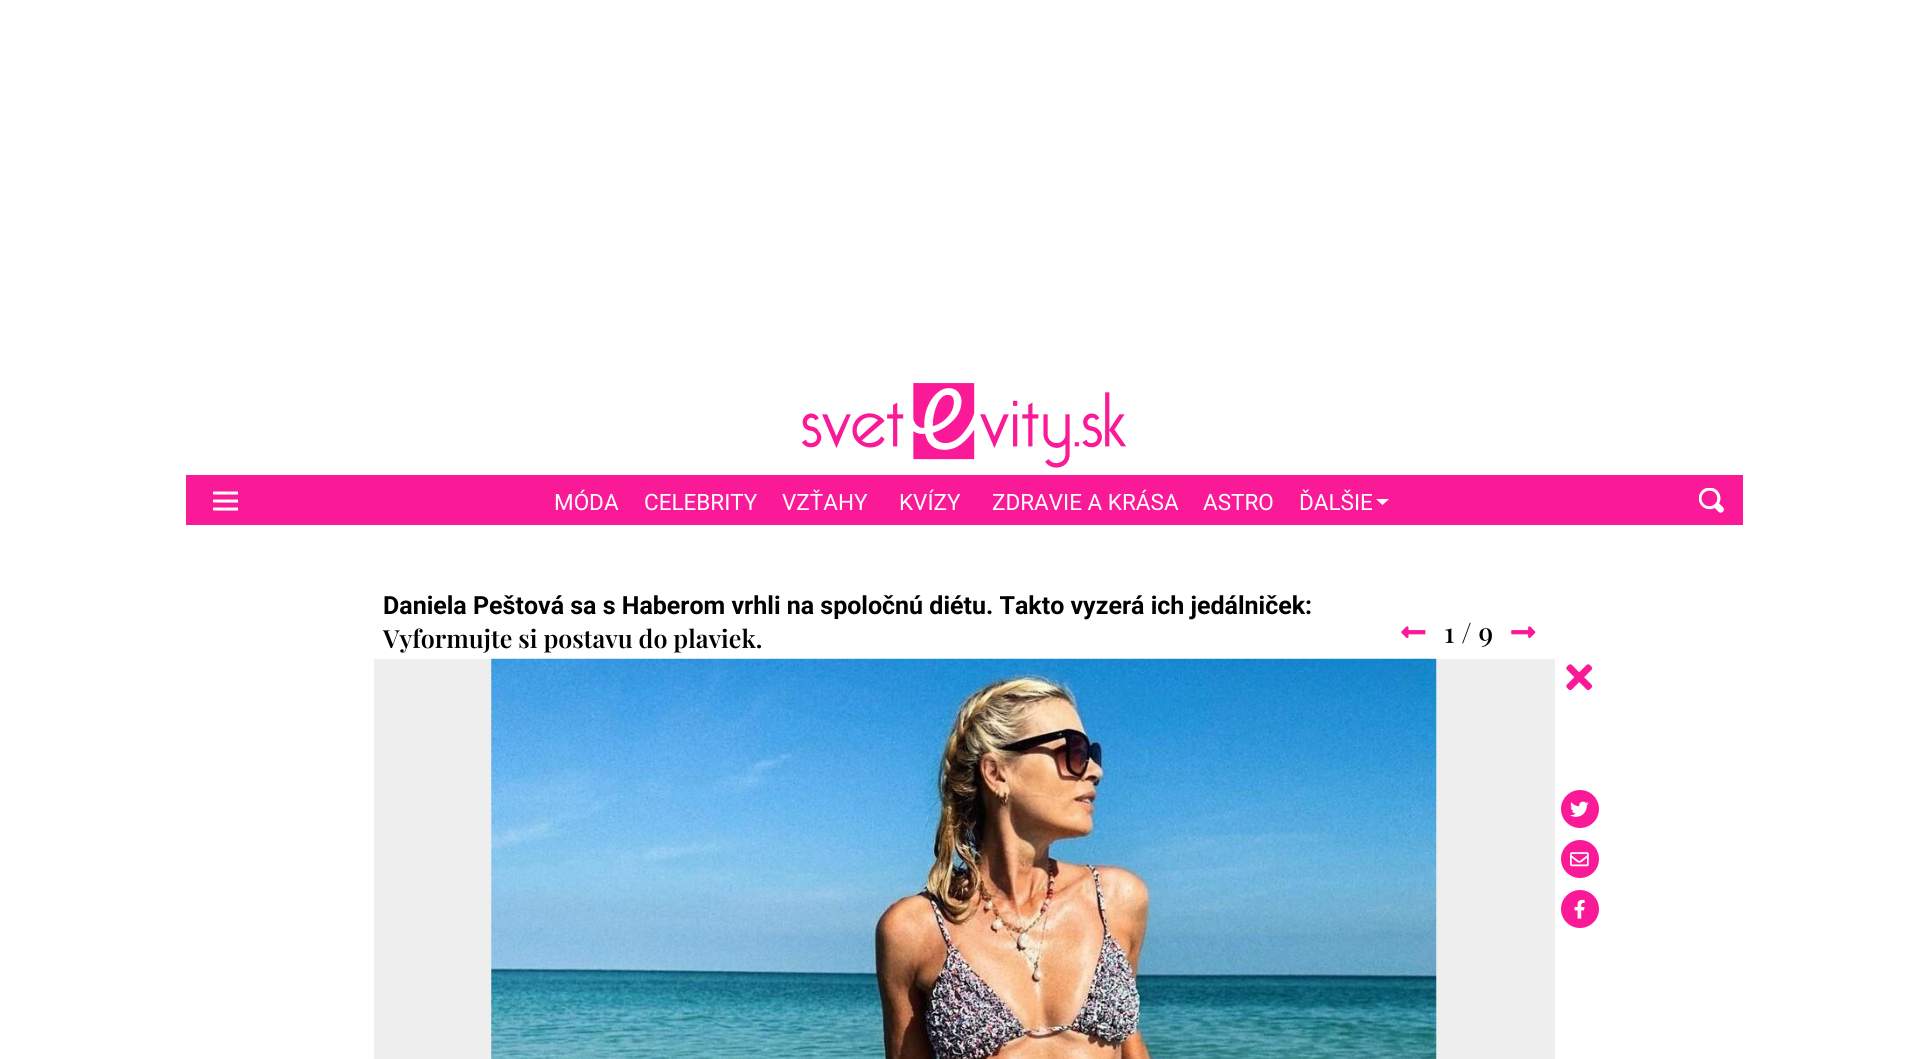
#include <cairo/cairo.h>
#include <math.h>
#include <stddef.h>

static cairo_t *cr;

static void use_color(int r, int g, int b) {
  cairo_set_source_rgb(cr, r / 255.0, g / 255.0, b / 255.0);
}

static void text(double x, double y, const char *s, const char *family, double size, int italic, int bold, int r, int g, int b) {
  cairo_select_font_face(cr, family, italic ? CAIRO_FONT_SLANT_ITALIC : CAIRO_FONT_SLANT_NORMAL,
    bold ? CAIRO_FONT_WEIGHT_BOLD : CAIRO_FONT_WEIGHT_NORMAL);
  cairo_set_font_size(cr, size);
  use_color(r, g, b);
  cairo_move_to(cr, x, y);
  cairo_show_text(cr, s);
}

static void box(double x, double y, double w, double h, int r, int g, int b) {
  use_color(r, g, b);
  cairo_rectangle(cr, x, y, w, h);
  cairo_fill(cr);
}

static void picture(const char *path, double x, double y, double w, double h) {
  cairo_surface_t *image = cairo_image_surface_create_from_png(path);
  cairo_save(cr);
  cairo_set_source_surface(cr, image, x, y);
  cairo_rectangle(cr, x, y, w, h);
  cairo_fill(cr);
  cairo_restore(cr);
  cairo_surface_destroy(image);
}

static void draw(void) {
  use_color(255, 255, 255);
  cairo_paint(cr);
  picture("img_01.png", 801, 383, 325, 85);
  box(186, 475, 1557, 50, 250, 26, 152);
  cairo_save(cr);
  cairo_rectangle(cr, 213, 488, 25, 25);
  cairo_clip(cr);
  cairo_new_path(cr);
  cairo_move_to(cr, 214, 493);
  cairo_line_to(cr, 238, 493);
  cairo_move_to(cr, 214, 501);
  cairo_line_to(cr, 238, 501);
  cairo_move_to(cr, 214, 509);
  cairo_line_to(cr, 238, 509);
  use_color(255, 255, 255);
  cairo_set_line_width(cr, 3);
  cairo_set_line_cap(cr, CAIRO_LINE_CAP_ROUND);
  cairo_stroke(cr);
  cairo_restore(cr);
  use_color(255, 255, 255);
  cairo_new_path(cr);
  cairo_move_to(cr, 1376, 499);
  cairo_line_to(cr, 1389, 499);
  cairo_line_to(cr, 1382.5, 505);
  cairo_close_path(cr);
  cairo_fill(cr);
  picture("img_02.png", 1699, 488, 25, 25);
  picture("img_03.png", 1401, 626, 25, 12);
  picture("img_04.png", 1511, 626, 25, 13);
  box(374, 659, 1181, 400, 238, 238, 238);
  picture("img_05.png", 491, 658, 946, 401);
  picture("img_06.png", 1566, 664, 27, 27);
  use_color(250, 26, 152);
  cairo_arc(cr, 1580, 809, 19, 0, 2 * M_PI);
  cairo_fill(cr);
  picture("img_07.png", 1570, 801, 19, 16);
  cairo_arc(cr, 1580, 859, 19, 0, 2 * M_PI);
  cairo_fill(cr);
  picture("img_08.png", 1570, 852, 19, 15);
  cairo_arc(cr, 1580, 909, 19, 0, 2 * M_PI);
  cairo_fill(cr);
  picture("img_09.png", 1574, 899, 11, 20);
  text(554, 510, "MÓDA", "Roboto", 22.5, 0, 0, 255, 255, 255);
  text(644, 510, "CELEBRITY", "Roboto", 22.5, 0, 0, 255, 255, 255);
  text(782, 510, "VZŤAHY", "Roboto", 22.5, 0, 0, 255, 255, 255);
  text(899, 510, "KVÍZY", "Roboto", 22.5, 0, 0, 255, 255, 255);
  text(992, 510, "ZDRAVIE A KRÁSA", "Roboto", 22.5, 0, 0, 255, 255, 255);
  text(1203, 510, "ASTRO", "Roboto", 22.5, 0, 0, 255, 255, 255);
  text(1299, 510, "ĎALŠIE", "Roboto", 22.5, 0, 0, 255, 255, 255);
  text(383, 614, "Daniela Peštová sa s Haberom vrhli na spoločnú diétu. Takto vyzerá ich jedálniček:", "Roboto", 25, 0, 1, 0, 0, 0);
  text(383, 648, "Vyformujte si postavu do plaviek.", "Playfair Display SemiBold", 25, 0, 0, 0, 0, 0);
  text(1444, 643, "1 / 9", "Playfair Display Medium", 28, 0, 0, 0, 0, 0);
}

int main(void) {
  cairo_surface_t *surface = cairo_image_surface_create(CAIRO_FORMAT_RGB24, 1927, 1059);
  cr = cairo_create(surface);
  cairo_font_options_t *options = cairo_font_options_create();
  cairo_font_options_set_hint_metrics(options, CAIRO_HINT_METRICS_OFF);
  cairo_font_options_set_hint_style(options, CAIRO_HINT_STYLE_NONE);
  cairo_set_font_options(cr, options);
  cairo_set_miter_limit(cr, 4);
  draw();
  cairo_surface_write_to_png(surface, "out.png");
  cairo_font_options_destroy(options);
  cairo_destroy(cr);
  cairo_surface_destroy(surface);
  return 0;
}
